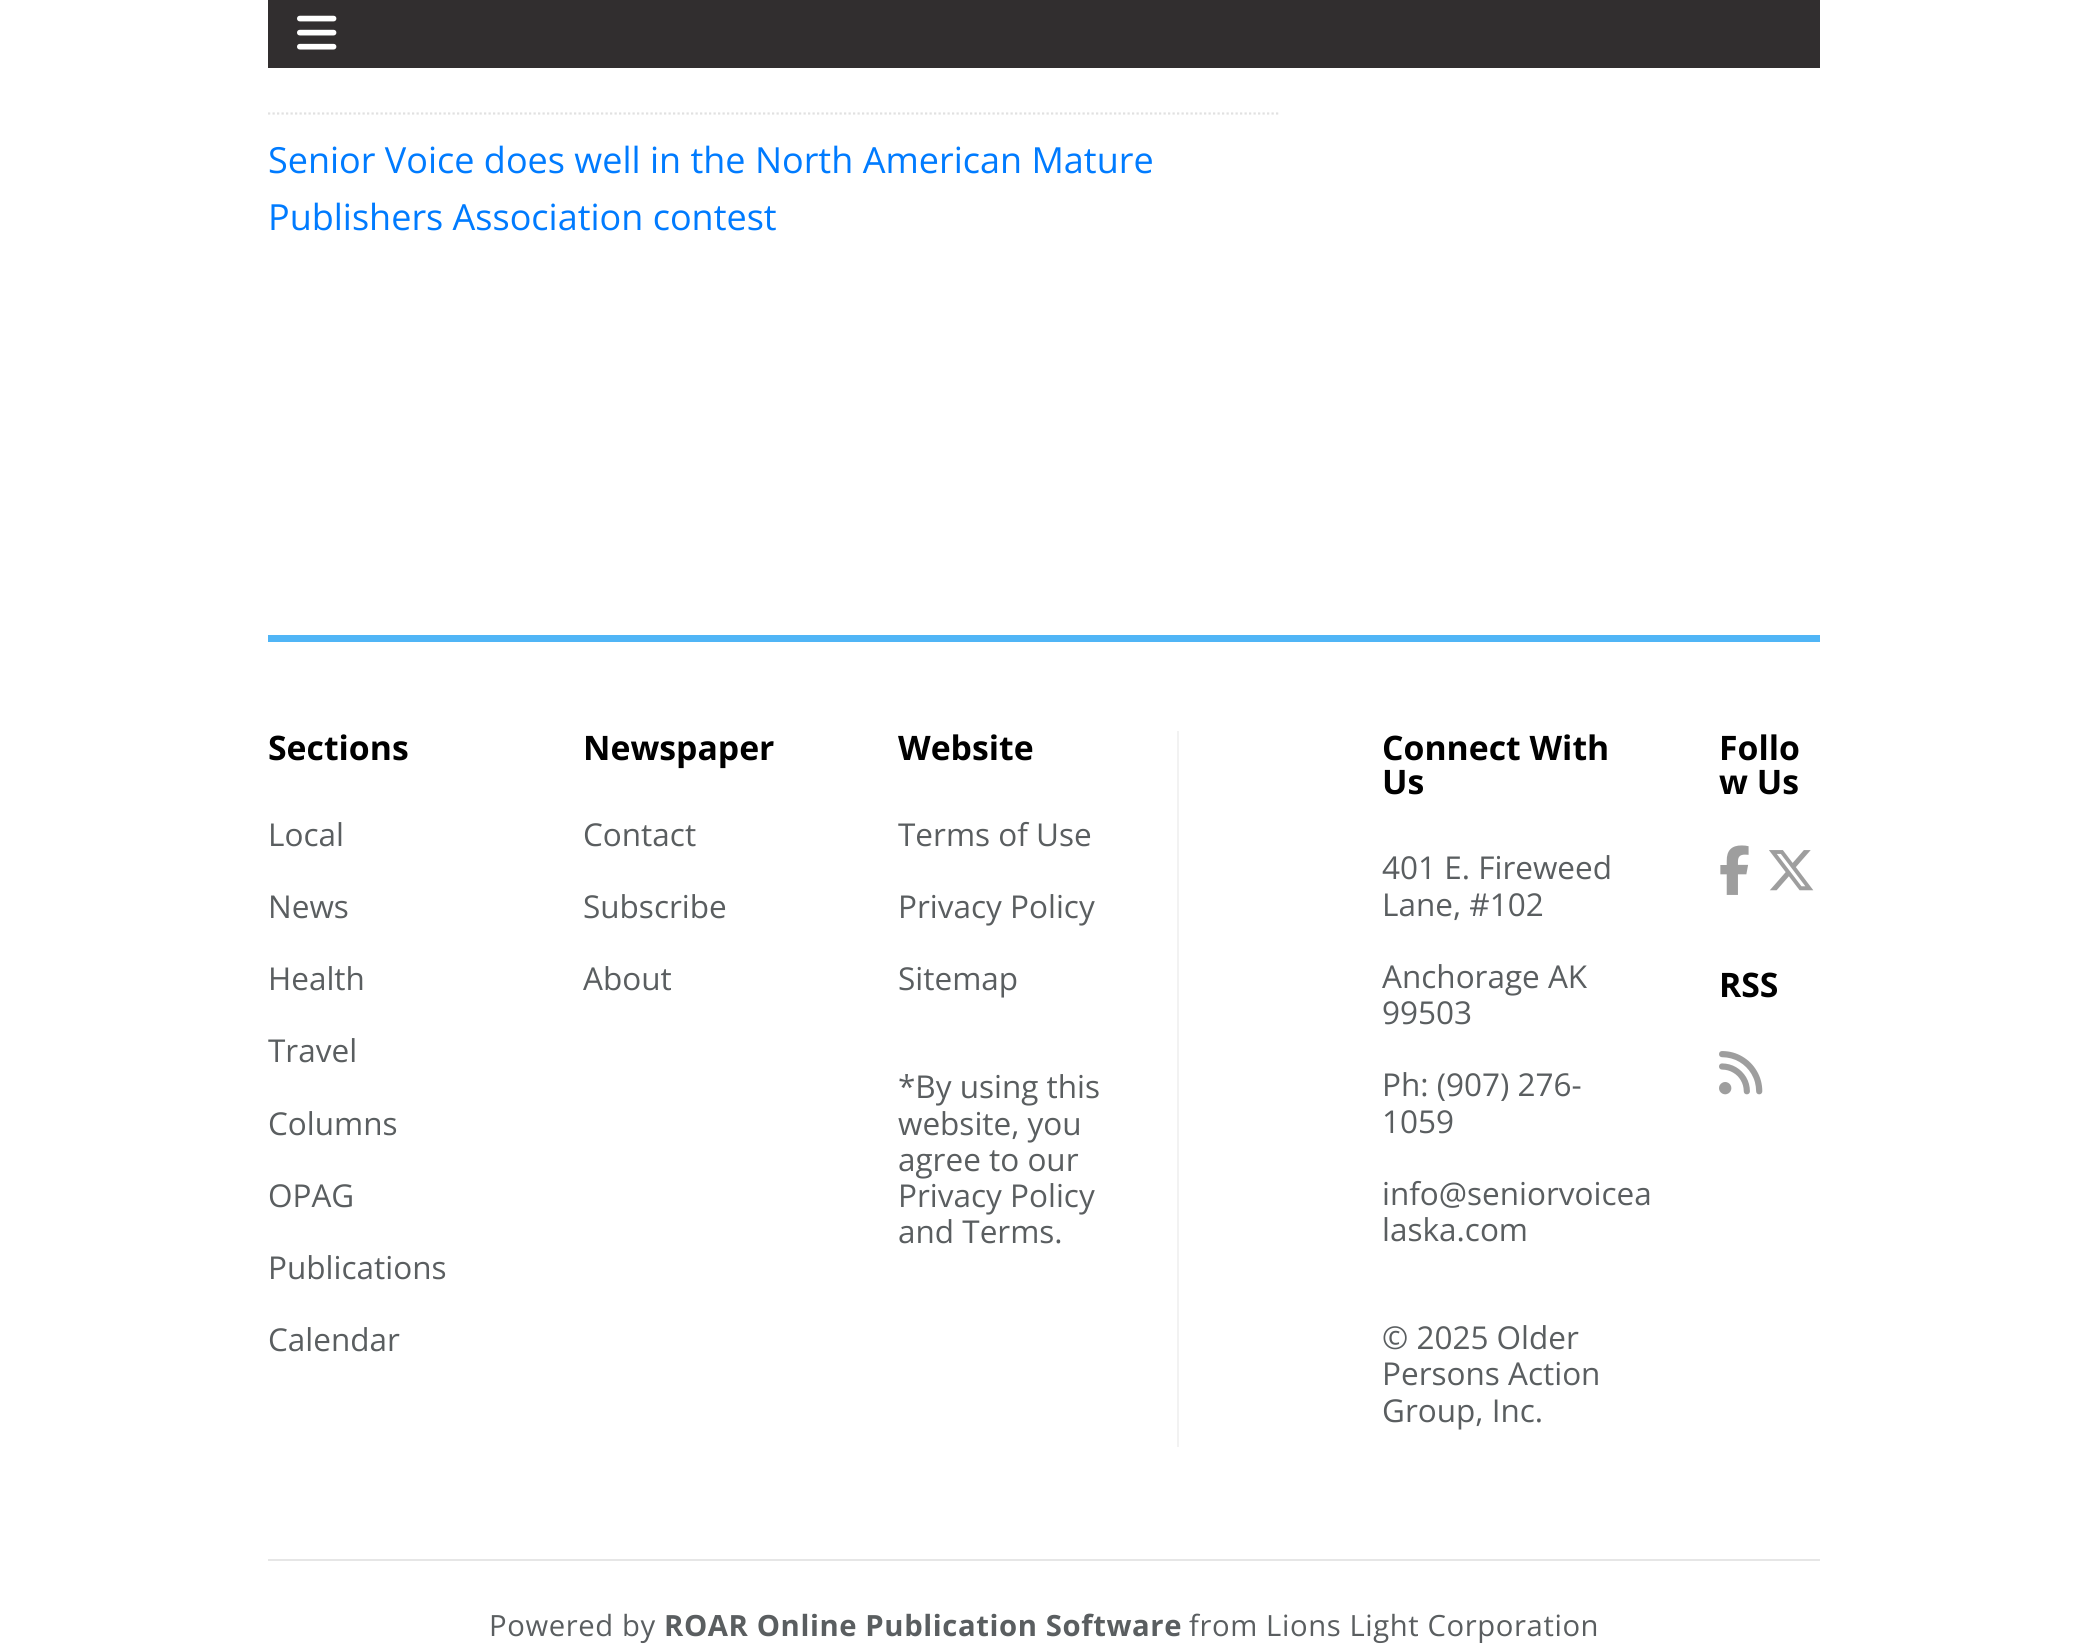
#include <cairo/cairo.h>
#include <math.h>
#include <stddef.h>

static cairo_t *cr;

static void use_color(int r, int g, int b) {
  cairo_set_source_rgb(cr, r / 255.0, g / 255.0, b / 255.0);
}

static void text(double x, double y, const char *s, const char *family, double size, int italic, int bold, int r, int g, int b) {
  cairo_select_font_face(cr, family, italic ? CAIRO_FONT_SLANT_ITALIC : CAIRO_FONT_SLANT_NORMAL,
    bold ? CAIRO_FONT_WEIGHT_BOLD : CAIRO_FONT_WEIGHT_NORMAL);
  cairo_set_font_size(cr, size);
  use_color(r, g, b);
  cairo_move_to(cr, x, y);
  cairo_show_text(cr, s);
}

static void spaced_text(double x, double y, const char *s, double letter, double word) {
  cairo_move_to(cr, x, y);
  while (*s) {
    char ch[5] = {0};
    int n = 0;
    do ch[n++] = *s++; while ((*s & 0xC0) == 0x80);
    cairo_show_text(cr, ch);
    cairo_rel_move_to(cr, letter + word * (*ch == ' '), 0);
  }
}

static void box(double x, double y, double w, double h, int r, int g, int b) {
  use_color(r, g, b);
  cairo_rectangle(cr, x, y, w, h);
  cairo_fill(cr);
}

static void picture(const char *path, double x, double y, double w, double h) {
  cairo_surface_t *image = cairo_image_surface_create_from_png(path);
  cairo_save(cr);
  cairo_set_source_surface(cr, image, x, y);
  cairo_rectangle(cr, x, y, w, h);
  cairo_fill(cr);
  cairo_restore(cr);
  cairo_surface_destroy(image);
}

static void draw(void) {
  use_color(255, 255, 255);
  cairo_paint(cr);
  box(268, 0, 1552, 68, 49, 46, 47);
  picture("img_01.png", 297, 15, 40, 35);
  cairo_new_path(cr);
  cairo_move_to(cr, 268, 113.5);
  cairo_line_to(cr, 1280, 113.5);
  use_color(225, 225, 225);
  cairo_set_line_width(cr, 2.2);
  cairo_set_dash(cr, (double[]){2.25, 2.25}, 2, 0);
  cairo_stroke(cr);
  box(268, 635, 1552, 7, 80, 181, 246);
  box(1177, 731, 2, 716, 242, 242, 242);
  picture("img_02.png", 1720, 845, 29, 50);
  picture("img_03.png", 1769, 850, 45, 41);
  picture("img_04.png", 1719, 1051, 44, 44);
  box(268, 1559, 1552, 2, 230, 230, 230);
  text(268, 173, "Senior Voice does well in the North American Mature", "Open Sans", 36, 0, 0, 0, 123, 255);
  text(268, 230, "Publishers Association contest", "Open Sans", 36, 0, 0, 0, 123, 255);
  text(268, 760, "Sections", "Open Sans", 33.75, 0, 1, 0, 0, 0);
  text(268, 846, "Local", "Open Sans", 31.5, 0, 0, 90, 94, 96);
  text(268, 918, "News", "Open Sans", 31.5, 0, 0, 90, 94, 96);
  text(268, 990, "Health", "Open Sans", 31.5, 0, 0, 90, 94, 96);
  text(268, 1062, "Travel", "Open Sans", 31.5, 0, 0, 90, 94, 96);
  text(268, 1135, "Columns", "Open Sans", 31.5, 0, 0, 90, 94, 96);
  text(268, 1207, "OPAG", "Open Sans", 31.5, 0, 0, 90, 94, 96);
  text(268, 1279, "Publications", "Open Sans", 31.5, 0, 0, 90, 94, 96);
  text(268, 1351, "Calendar", "Open Sans", 31.5, 0, 0, 90, 94, 96);
  text(583, 760, "Newspaper", "Open Sans", 33.75, 0, 1, 0, 0, 0);
  text(583, 846, "Contact", "Open Sans", 31.5, 0, 0, 90, 94, 96);
  text(583, 918, "Subscribe", "Open Sans", 31.5, 0, 0, 90, 94, 96);
  text(583, 990, "About", "Open Sans", 31.5, 0, 0, 90, 94, 96);
  text(898, 760, "Website", "Open Sans", 33.75, 0, 1, 0, 0, 0);
  text(898, 846, "Terms of Use", "Open Sans", 31.5, 0, 0, 90, 94, 96);
  text(898, 918, "Privacy Policy", "Open Sans", 31.5, 0, 0, 90, 94, 96);
  text(898, 990, "Sitemap", "Open Sans", 31.5, 0, 0, 90, 94, 96);
  text(898, 1098, "*By using this", "Open Sans", 31.5, 0, 0, 90, 94, 96);
  text(898, 1135, "website, you", "Open Sans", 31.5, 0, 0, 90, 94, 96);
  text(898, 1171, "agree to our", "Open Sans", 31.5, 0, 0, 90, 94, 96);
  text(898, 1207, "Privacy Policy", "Open Sans", 31.5, 0, 0, 90, 94, 96);
  text(898, 1243, "and Terms.", "Open Sans", 31.5, 0, 0, 90, 94, 96);
  text(1382, 760, "Connect With", "Open Sans", 33.75, 0, 1, 0, 0, 0);
  text(1382, 794, "Us", "Open Sans", 33.75, 0, 1, 0, 0, 0);
  text(1382, 879, "401 E. Fireweed", "Open Sans", 31.5, 0, 0, 90, 94, 96);
  text(1382, 916, "Lane, #102", "Open Sans", 31.5, 0, 0, 90, 94, 96);
  text(1382, 988, "Anchorage AK", "Open Sans", 31.5, 0, 0, 90, 94, 96);
  text(1382, 1024, "99503", "Open Sans", 31.5, 0, 0, 90, 94, 96);
  text(1382, 1096, "Ph: (907) 276-", "Open Sans", 31.5, 0, 0, 90, 94, 96);
  text(1382, 1133, "1059", "Open Sans", 31.5, 0, 0, 90, 94, 96);
  text(1382, 1205, "info@seniorvoicea", "Open Sans", 31.5, 0, 0, 90, 94, 96);
  text(1382, 1241, "laska.com", "Open Sans", 31.5, 0, 0, 90, 94, 96);
  text(1382, 1349, "© 2025 Older", "Open Sans", 31.5, 0, 0, 90, 94, 96);
  text(1382, 1385, "Persons Action", "Open Sans", 31.5, 0, 0, 90, 94, 96);
  text(1382, 1422, "Group, Inc.", "Open Sans", 31.5, 0, 0, 90, 94, 96);
  text(1719, 760, "Follo", "Open Sans", 33.75, 0, 1, 0, 0, 0);
  text(1719, 794, "w Us", "Open Sans", 33.75, 0, 1, 0, 0, 0);
  text(1719, 997, "RSS", "Open Sans", 33.75, 0, 1, 0, 0, 0);
  cairo_select_font_face(cr, "Open Sans", CAIRO_FONT_SLANT_NORMAL, CAIRO_FONT_WEIGHT_NORMAL);
  cairo_set_font_size(cr, 29.25);
  use_color(90, 94, 96);
  spaced_text(489, 1636, "Powered by", 0.6, 0);
  cairo_select_font_face(cr, "Open Sans", CAIRO_FONT_SLANT_NORMAL, CAIRO_FONT_WEIGHT_BOLD);
  spaced_text(664, 1636, "ROAR Online Publication Software", 0.6, 0);
  cairo_select_font_face(cr, "Open Sans", CAIRO_FONT_SLANT_NORMAL, CAIRO_FONT_WEIGHT_NORMAL);
  spaced_text(1189, 1636, "from Lions Light Corporation", 0.6, 0);
}

int main(void) {
  cairo_surface_t *surface = cairo_image_surface_create(CAIRO_FORMAT_RGB24, 2087, 1646);
  cr = cairo_create(surface);
  cairo_font_options_t *options = cairo_font_options_create();
  cairo_font_options_set_hint_metrics(options, CAIRO_HINT_METRICS_OFF);
  cairo_font_options_set_hint_style(options, CAIRO_HINT_STYLE_NONE);
  cairo_set_font_options(cr, options);
  cairo_set_miter_limit(cr, 4);
  draw();
  cairo_surface_write_to_png(surface, "out.png");
  cairo_font_options_destroy(options);
  cairo_destroy(cr);
  cairo_surface_destroy(surface);
  return 0;
}
